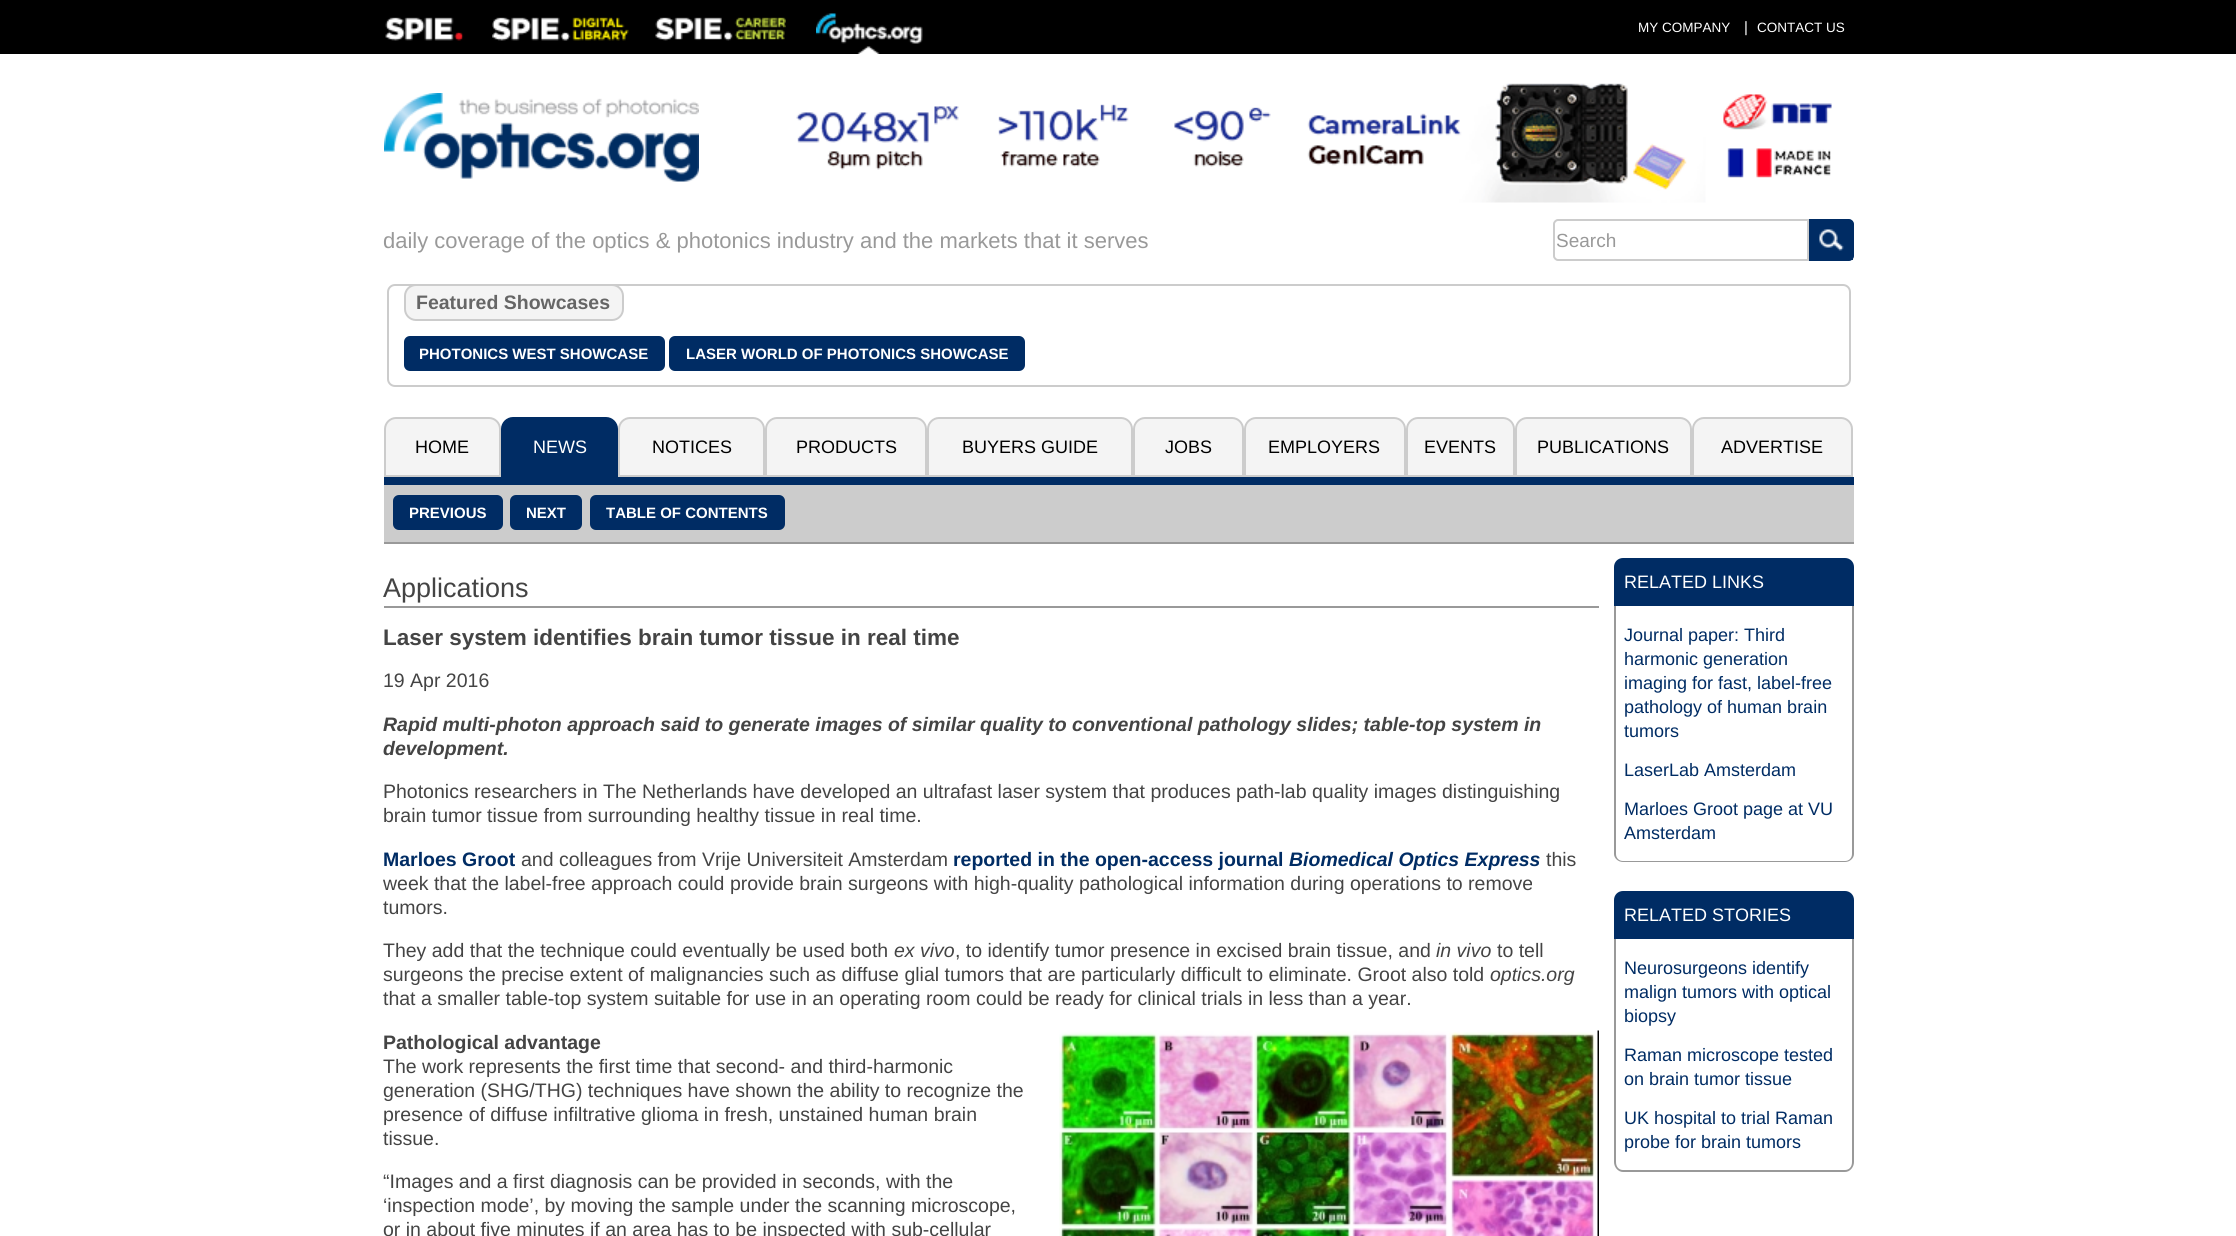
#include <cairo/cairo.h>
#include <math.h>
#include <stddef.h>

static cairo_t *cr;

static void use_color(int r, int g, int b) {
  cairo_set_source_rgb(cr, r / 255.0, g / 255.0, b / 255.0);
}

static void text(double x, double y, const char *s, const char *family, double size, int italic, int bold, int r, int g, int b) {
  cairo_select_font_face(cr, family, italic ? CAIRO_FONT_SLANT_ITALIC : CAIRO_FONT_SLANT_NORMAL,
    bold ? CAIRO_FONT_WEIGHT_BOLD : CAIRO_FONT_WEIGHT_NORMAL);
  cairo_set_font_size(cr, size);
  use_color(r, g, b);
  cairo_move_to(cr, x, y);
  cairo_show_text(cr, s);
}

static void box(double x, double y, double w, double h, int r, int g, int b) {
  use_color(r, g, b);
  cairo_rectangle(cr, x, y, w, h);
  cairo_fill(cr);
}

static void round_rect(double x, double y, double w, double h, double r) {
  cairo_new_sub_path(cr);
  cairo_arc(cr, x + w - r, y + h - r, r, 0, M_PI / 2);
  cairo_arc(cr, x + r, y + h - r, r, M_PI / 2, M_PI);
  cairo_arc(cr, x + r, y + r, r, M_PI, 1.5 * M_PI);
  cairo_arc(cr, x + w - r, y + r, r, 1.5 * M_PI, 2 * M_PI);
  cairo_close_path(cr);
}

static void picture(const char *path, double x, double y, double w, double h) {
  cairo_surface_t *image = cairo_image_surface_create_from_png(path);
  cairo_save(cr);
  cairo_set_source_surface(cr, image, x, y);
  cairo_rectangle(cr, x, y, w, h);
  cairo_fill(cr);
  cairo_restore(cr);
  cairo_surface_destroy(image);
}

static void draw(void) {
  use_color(255, 255, 255);
  cairo_paint(cr);
  box(0, 0, 2236, 54, 0, 0, 0);
  picture("img_01.png", 385, 17, 79, 24);
  picture("img_02.png", 492, 17, 137, 24);
  picture("img_03.png", 655, 17, 131, 24);
  picture("img_04.png", 816, 13, 107, 41);
  picture("img_05.png", 384, 93, 315, 89);
  picture("img_06.png", 796, 83, 1036, 120);
  cairo_new_path(cr);
  cairo_move_to(cr, 1558, 220);
  cairo_line_to(cr, 1808, 220);
  cairo_line_to(cr, 1808, 260);
  cairo_line_to(cr, 1558, 260);
  cairo_curve_to(cr, 1556, 260, 1554, 258, 1554, 256);
  cairo_line_to(cr, 1554, 224);
  cairo_curve_to(cr, 1554, 222, 1556, 220, 1558, 220);
  cairo_close_path(cr);
  use_color(204, 204, 204);
  cairo_stroke(cr);
  cairo_new_path(cr);
  cairo_move_to(cr, 1810, 220);
  cairo_line_to(cr, 1849, 220);
  cairo_curve_to(cr, 1851, 220, 1853, 222, 1853, 224);
  cairo_line_to(cr, 1853, 256);
  cairo_curve_to(cr, 1853, 258, 1851, 260, 1849, 260);
  cairo_line_to(cr, 1810, 260);
  cairo_close_path(cr);
  use_color(0, 44, 100);
  cairo_stroke(cr);
  box(1811, 221, 42, 39, 0, 44, 100);
  picture("img_07.png", 1819, 229, 25, 22);
  round_rect(388, 285, 1462, 101, 7);
  use_color(204, 204, 204);
  cairo_stroke(cr);
  use_color(244, 244, 244);
  round_rect(405, 285, 218, 35, 11);
  cairo_fill_preserve(cr);
  use_color(204, 204, 204);
  cairo_stroke(cr);
  use_color(0, 44, 100);
  round_rect(405, 337, 259, 33, 5);
  cairo_fill_preserve(cr);
  cairo_stroke(cr);
  round_rect(670, 337, 354, 33, 5);
  cairo_fill_preserve(cr);
  cairo_stroke(cr);
  box(384, 477, 1470, 8, 0, 44, 100);
  use_color(244, 244, 244);
  cairo_new_path(cr);
  cairo_move_to(cr, 396, 418);
  cairo_line_to(cr, 489, 418);
  cairo_curve_to(cr, 495, 418, 500, 423, 500, 429);
  cairo_line_to(cr, 500, 476);
  cairo_line_to(cr, 385, 476);
  cairo_line_to(cr, 385, 429);
  cairo_curve_to(cr, 385, 423, 390, 418, 396, 418);
  cairo_close_path(cr);
  cairo_fill_preserve(cr);
  use_color(204, 204, 204);
  cairo_stroke(cr);
  use_color(0, 44, 100);
  cairo_new_path(cr);
  cairo_move_to(cr, 513, 418);
  cairo_line_to(cr, 606, 418);
  cairo_curve_to(cr, 612, 418, 617, 423, 617, 429);
  cairo_line_to(cr, 617, 476);
  cairo_line_to(cr, 502, 476);
  cairo_line_to(cr, 502, 429);
  cairo_curve_to(cr, 502, 423, 507, 418, 513, 418);
  cairo_close_path(cr);
  cairo_fill_preserve(cr);
  cairo_stroke(cr);
  use_color(244, 244, 244);
  cairo_new_path(cr);
  cairo_move_to(cr, 630, 418);
  cairo_line_to(cr, 753, 418);
  cairo_curve_to(cr, 759, 418, 764, 423, 764, 429);
  cairo_line_to(cr, 764, 476);
  cairo_line_to(cr, 619, 476);
  cairo_line_to(cr, 619, 429);
  cairo_curve_to(cr, 619, 423, 624, 418, 630, 418);
  cairo_close_path(cr);
  cairo_fill_preserve(cr);
  use_color(204, 204, 204);
  cairo_stroke(cr);
  use_color(244, 244, 244);
  cairo_new_path(cr);
  cairo_move_to(cr, 777, 418);
  cairo_line_to(cr, 915, 418);
  cairo_curve_to(cr, 921, 418, 926, 423, 926, 429);
  cairo_line_to(cr, 926, 476);
  cairo_line_to(cr, 766, 476);
  cairo_line_to(cr, 766, 429);
  cairo_curve_to(cr, 766, 423, 771, 418, 777, 418);
  cairo_close_path(cr);
  cairo_fill_preserve(cr);
  use_color(204, 204, 204);
  cairo_stroke(cr);
  use_color(244, 244, 244);
  cairo_new_path(cr);
  cairo_move_to(cr, 939, 418);
  cairo_line_to(cr, 1121, 418);
  cairo_curve_to(cr, 1127, 418, 1132, 423, 1132, 429);
  cairo_line_to(cr, 1132, 476);
  cairo_line_to(cr, 928, 476);
  cairo_line_to(cr, 928, 429);
  cairo_curve_to(cr, 928, 423, 933, 418, 939, 418);
  cairo_close_path(cr);
  cairo_fill_preserve(cr);
  use_color(204, 204, 204);
  cairo_stroke(cr);
  use_color(244, 244, 244);
  cairo_new_path(cr);
  cairo_move_to(cr, 1145, 418);
  cairo_line_to(cr, 1232, 418);
  cairo_curve_to(cr, 1238, 418, 1243, 423, 1243, 429);
  cairo_line_to(cr, 1243, 476);
  cairo_line_to(cr, 1134, 476);
  cairo_line_to(cr, 1134, 429);
  cairo_curve_to(cr, 1134, 423, 1139, 418, 1145, 418);
  cairo_close_path(cr);
  cairo_fill_preserve(cr);
  use_color(204, 204, 204);
  cairo_stroke(cr);
  use_color(244, 244, 244);
  cairo_new_path(cr);
  cairo_move_to(cr, 1256, 418);
  cairo_line_to(cr, 1394, 418);
  cairo_curve_to(cr, 1400, 418, 1405, 423, 1405, 429);
  cairo_line_to(cr, 1405, 476);
  cairo_line_to(cr, 1245, 476);
  cairo_line_to(cr, 1245, 429);
  cairo_curve_to(cr, 1245, 423, 1250, 418, 1256, 418);
  cairo_close_path(cr);
  cairo_fill_preserve(cr);
  use_color(204, 204, 204);
  cairo_stroke(cr);
  use_color(244, 244, 244);
  cairo_new_path(cr);
  cairo_move_to(cr, 1418, 418);
  cairo_line_to(cr, 1503, 418);
  cairo_curve_to(cr, 1509, 418, 1514, 423, 1514, 429);
  cairo_line_to(cr, 1514, 476);
  cairo_line_to(cr, 1407, 476);
  cairo_line_to(cr, 1407, 429);
  cairo_curve_to(cr, 1407, 423, 1412, 418, 1418, 418);
  cairo_close_path(cr);
  cairo_fill_preserve(cr);
  use_color(204, 204, 204);
  cairo_stroke(cr);
  use_color(244, 244, 244);
  cairo_new_path(cr);
  cairo_move_to(cr, 1527, 418);
  cairo_line_to(cr, 1680, 418);
  cairo_curve_to(cr, 1686, 418, 1691, 423, 1691, 429);
  cairo_line_to(cr, 1691, 476);
  cairo_line_to(cr, 1516, 476);
  cairo_line_to(cr, 1516, 429);
  cairo_curve_to(cr, 1516, 423, 1521, 418, 1527, 418);
  cairo_close_path(cr);
  cairo_fill_preserve(cr);
  use_color(204, 204, 204);
  cairo_stroke(cr);
  use_color(244, 244, 244);
  cairo_new_path(cr);
  cairo_move_to(cr, 1704, 418);
  cairo_line_to(cr, 1841, 418);
  cairo_curve_to(cr, 1847, 418, 1852, 423, 1852, 429);
  cairo_line_to(cr, 1852, 476);
  cairo_line_to(cr, 1693, 476);
  cairo_line_to(cr, 1693, 429);
  cairo_curve_to(cr, 1693, 423, 1698, 418, 1704, 418);
  cairo_close_path(cr);
  cairo_fill_preserve(cr);
  use_color(204, 204, 204);
  cairo_stroke(cr);
  box(384, 485, 1470, 57, 204, 204, 204);
  box(384, 542, 1470, 2, 153, 153, 153);
  use_color(0, 44, 100);
  round_rect(394, 496, 108, 33, 5);
  cairo_fill_preserve(cr);
  cairo_stroke(cr);
  round_rect(511, 496, 70, 33, 5);
  cairo_fill_preserve(cr);
  cairo_stroke(cr);
  round_rect(591, 496, 193, 33, 5);
  cairo_fill_preserve(cr);
  cairo_stroke(cr);
  box(384, 606, 1215, 2, 153, 153, 153);
  picture("img_08.png", 1059, 1030, 540, 206);
  use_color(0, 44, 100);
  cairo_new_path(cr);
  cairo_move_to(cr, 1623, 559);
  cairo_line_to(cr, 1845, 559);
  cairo_curve_to(cr, 1849.5, 559, 1853, 562.5, 1853, 567);
  cairo_line_to(cr, 1853, 605);
  cairo_line_to(cr, 1615, 605);
  cairo_line_to(cr, 1615, 567);
  cairo_curve_to(cr, 1615, 562.5, 1618.5, 559, 1623, 559);
  cairo_close_path(cr);
  cairo_fill_preserve(cr);
  cairo_stroke(cr);
  use_color(153, 153, 153);
  cairo_set_fill_rule(cr, CAIRO_FILL_RULE_EVEN_ODD);
  cairo_new_path(cr);
  cairo_move_to(cr, 1614, 606);
  cairo_line_to(cr, 1854, 606);
  cairo_line_to(cr, 1854, 854);
  cairo_curve_to(cr, 1854, 858, 1850, 862, 1845, 862);
  cairo_line_to(cr, 1623, 862);
  cairo_curve_to(cr, 1618, 862, 1614, 858, 1614, 854);
  cairo_close_path(cr);
  cairo_move_to(cr, 1616, 606);
  cairo_line_to(cr, 1852, 606);
  cairo_line_to(cr, 1852, 854);
  cairo_curve_to(cr, 1852, 858, 1849, 861, 1845, 861);
  cairo_line_to(cr, 1623, 861);
  cairo_curve_to(cr, 1619, 861, 1616, 858, 1616, 854);
  cairo_close_path(cr);
  cairo_fill(cr);
  use_color(0, 44, 100);
  cairo_new_path(cr);
  cairo_move_to(cr, 1623, 892);
  cairo_line_to(cr, 1845, 892);
  cairo_curve_to(cr, 1849.5, 892, 1853, 895.5, 1853, 900);
  cairo_line_to(cr, 1853, 938);
  cairo_line_to(cr, 1615, 938);
  cairo_line_to(cr, 1615, 900);
  cairo_curve_to(cr, 1615, 895.5, 1618.5, 892, 1623, 892);
  cairo_close_path(cr);
  cairo_fill_preserve(cr);
  cairo_stroke(cr);
  use_color(153, 153, 153);
  cairo_new_path(cr);
  cairo_move_to(cr, 1614, 939);
  cairo_line_to(cr, 1854, 939);
  cairo_line_to(cr, 1854, 1162);
  cairo_curve_to(cr, 1854, 1167, 1850, 1172, 1845, 1172);
  cairo_line_to(cr, 1623, 1172);
  cairo_curve_to(cr, 1618, 1172, 1614, 1167, 1614, 1162);
  cairo_close_path(cr);
  cairo_move_to(cr, 1616, 939);
  cairo_line_to(cr, 1852, 939);
  cairo_line_to(cr, 1852, 1162);
  cairo_curve_to(cr, 1852, 1167, 1849, 1170, 1845, 1170);
  cairo_line_to(cr, 1623, 1170);
  cairo_curve_to(cr, 1619, 1170, 1616, 1167, 1616, 1162);
  cairo_close_path(cr);
  cairo_fill(cr);
  text(1638, 32, "MY COMPANY", "Liberation Sans", 13.5, 0, 0, 255, 255, 255);
  text(1744, 32, "|", "Liberation Sans", 15, 0, 0, 255, 255, 255);
  text(1757, 32, "CONTACT US", "Liberation Sans", 13.5, 0, 0, 255, 255, 255);
  text(383, 248, "daily coverage of the optics & photonics industry and the markets that it serves", "Liberation Sans", 22, 0, 0, 153, 153, 153);
  text(1556, 247, "Search", "Liberation Sans", 19, 0, 0, 153, 153, 153);
  text(416, 309, "Featured Showcases", "Liberation Sans", 19.5, 0, 1, 102, 102, 102);
  text(419, 359, "PHOTONICS WEST SHOWCASE", "Liberation Sans", 15, 0, 1, 255, 255, 255);
  text(686, 359, "LASER WORLD OF PHOTONICS SHOWCASE", "Liberation Sans", 15, 0, 1, 255, 255, 255);
  text(415, 453, "HOME", "Liberation Sans", 18, 0, 0, 0, 0, 0);
  text(533, 453, "NEWS", "Liberation Sans", 18, 0, 0, 255, 255, 255);
  text(652, 453, "NOTICES", "Liberation Sans", 18, 0, 0, 0, 0, 0);
  text(796, 453, "PRODUCTS", "Liberation Sans", 18, 0, 0, 0, 0, 0);
  text(962, 453, "BUYERS GUIDE", "Liberation Sans", 18, 0, 0, 0, 0, 0);
  text(1165, 453, "JOBS", "Liberation Sans", 18, 0, 0, 0, 0, 0);
  text(1268, 453, "EMPLOYERS", "Liberation Sans", 18, 0, 0, 0, 0, 0);
  text(1424, 453, "EVENTS", "Liberation Sans", 18, 0, 0, 0, 0, 0);
  text(1537, 453, "PUBLICATIONS", "Liberation Sans", 18, 0, 0, 0, 0, 0);
  text(1721, 453, "ADVERTISE", "Liberation Sans", 18, 0, 0, 0, 0, 0);
  text(409, 518, "PREVIOUS", "Liberation Sans", 15, 0, 1, 255, 255, 255);
  text(526, 518, "NEXT", "Liberation Sans", 15, 0, 1, 255, 255, 255);
  text(606, 518, "TABLE OF CONTENTS", "Liberation Sans", 15, 0, 1, 255, 255, 255);
  text(383, 597, "Applications", "Liberation Sans", 27, 0, 0, 68, 68, 68);
  text(383, 645, "Laser system identifies brain tumor tissue in real time", "Liberation Sans", 22.5, 0, 1, 68, 68, 68);
  text(383, 687, "19 Apr 2016", "Liberation Sans", 19.5, 0, 0, 68, 68, 68);
  text(383, 731, "Rapid multi-photon approach said to generate images of similar quality to conventional pathology slides; table-top system in", "Liberation Sans", 19.5, 1, 1, 68, 68, 68);
  text(383, 755, "development.", "Liberation Sans", 19.5, 1, 1, 68, 68, 68);
  text(383, 798, "Photonics researchers in The Netherlands have developed an ultrafast laser system that produces path-lab quality images distinguishing", "Liberation Sans", 19.5, 0, 0, 68, 68, 68);
  text(383, 822, "brain tumor tissue from surrounding healthy tissue in real time.", "Liberation Sans", 19.5, 0, 0, 68, 68, 68);
  text(383, 866, "Marloes Groot", "Liberation Sans", 19.5, 0, 1, 0, 44, 100);
  text(521, 866, "and colleagues from Vrije Universiteit Amsterdam", "Liberation Sans", 19.5, 0, 0, 68, 68, 68);
  text(953, 866, "reported in the open-access journal", "Liberation Sans", 19.5, 0, 1, 0, 44, 100);
  text(1289, 866, "Biomedical Optics Express", "Liberation Sans", 19.5, 1, 1, 0, 44, 100);
  text(1546, 866, "this", "Liberation Sans", 19.5, 0, 0, 68, 68, 68);
  text(383, 890, "week that the label-free approach could provide brain surgeons with high-quality pathological information during operations to remove", "Liberation Sans", 19.5, 0, 0, 68, 68, 68);
  text(383, 914, "tumors.", "Liberation Sans", 19.5, 0, 0, 68, 68, 68);
  text(383, 957, "They add that the technique could eventually be used both", "Liberation Sans", 19.5, 0, 0, 68, 68, 68);
  text(894, 957, "ex vivo", "Liberation Sans", 19.5, 1, 0, 68, 68, 68);
  text(955, 957, ", to identify tumor presence in excised brain tissue, and", "Liberation Sans", 19.5, 0, 0, 68, 68, 68);
  text(1436, 957, "in vivo", "Liberation Sans", 19.5, 1, 0, 68, 68, 68);
  text(1497, 957, "to tell", "Liberation Sans", 19.5, 0, 0, 68, 68, 68);
  text(383, 981, "surgeons the precise extent of malignancies such as diffuse glial tumors that are particularly difficult to eliminate. Groot also told", "Liberation Sans", 19.5, 0, 0, 68, 68, 68);
  text(1490, 981, "optics.org", "Liberation Sans", 19.5, 1, 0, 68, 68, 68);
  text(383, 1005, "that a smaller table-top system suitable for use in an operating room could be ready for clinical trials in less than a year.", "Liberation Sans", 19.5, 0, 0, 68, 68, 68);
  text(383, 1049, "Pathological advantage", "Liberation Sans", 19.5, 0, 1, 68, 68, 68);
  text(383, 1073, "The work represents the first time that second- and third-harmonic", "Liberation Sans", 19.5, 0, 0, 68, 68, 68);
  text(383, 1097, "generation (SHG/THG) techniques have shown the ability to recognize the", "Liberation Sans", 19.5, 0, 0, 68, 68, 68);
  text(383, 1121, "presence of diffuse infiltrative glioma in fresh, unstained human brain", "Liberation Sans", 19.5, 0, 0, 68, 68, 68);
  text(383, 1145, "tissue.", "Liberation Sans", 19.5, 0, 0, 68, 68, 68);
  text(383, 1188, "“Images and a first diagnosis can be provided in seconds, with the", "Liberation Sans", 19.5, 0, 0, 68, 68, 68);
  text(383, 1212, "‘inspection mode’, by moving the sample under the scanning microscope,", "Liberation Sans", 19.5, 0, 0, 68, 68, 68);
  text(383, 1236, "or in about five minutes if an area has to be inspected with sub-cellular", "Liberation Sans", 19.5, 0, 0, 68, 68, 68);
  text(1624, 588, "RELATED LINKS", "Liberation Sans", 18, 0, 0, 255, 255, 255);
  text(1624, 641, "Journal paper: Third", "Liberation Sans", 18, 0, 0, 0, 44, 100);
  text(1624, 665, "harmonic generation", "Liberation Sans", 18, 0, 0, 0, 44, 100);
  text(1624, 689, "imaging for fast, label-free", "Liberation Sans", 18, 0, 0, 0, 44, 100);
  text(1624, 713, "pathology of human brain", "Liberation Sans", 18, 0, 0, 0, 44, 100);
  text(1624, 737, "tumors", "Liberation Sans", 18, 0, 0, 0, 44, 100);
  text(1624, 776, "LaserLab Amsterdam", "Liberation Sans", 18, 0, 0, 0, 44, 100);
  text(1624, 815, "Marloes Groot page at VU", "Liberation Sans", 18, 0, 0, 0, 44, 100);
  text(1624, 839, "Amsterdam", "Liberation Sans", 18, 0, 0, 0, 44, 100);
  text(1624, 921, "RELATED STORIES", "Liberation Sans", 18, 0, 0, 255, 255, 255);
  text(1624, 974, "Neurosurgeons identify", "Liberation Sans", 18, 0, 0, 0, 44, 100);
  text(1624, 998, "malign tumors with optical", "Liberation Sans", 18, 0, 0, 0, 44, 100);
  text(1624, 1022, "biopsy", "Liberation Sans", 18, 0, 0, 0, 44, 100);
  text(1624, 1061, "Raman microscope tested", "Liberation Sans", 18, 0, 0, 0, 44, 100);
  text(1624, 1085, "on brain tumor tissue", "Liberation Sans", 18, 0, 0, 0, 44, 100);
  text(1624, 1124, "UK hospital to trial Raman", "Liberation Sans", 18, 0, 0, 0, 44, 100);
  text(1624, 1148, "probe for brain tumors", "Liberation Sans", 18, 0, 0, 0, 44, 100);
}

int main(void) {
  cairo_surface_t *surface = cairo_image_surface_create(CAIRO_FORMAT_RGB24, 2236, 1236);
  cr = cairo_create(surface);
  cairo_font_options_t *options = cairo_font_options_create();
  cairo_font_options_set_hint_metrics(options, CAIRO_HINT_METRICS_OFF);
  cairo_font_options_set_hint_style(options, CAIRO_HINT_STYLE_NONE);
  cairo_set_font_options(cr, options);
  cairo_set_miter_limit(cr, 4);
  draw();
  cairo_surface_write_to_png(surface, "out.png");
  cairo_font_options_destroy(options);
  cairo_destroy(cr);
  cairo_surface_destroy(surface);
  return 0;
}
